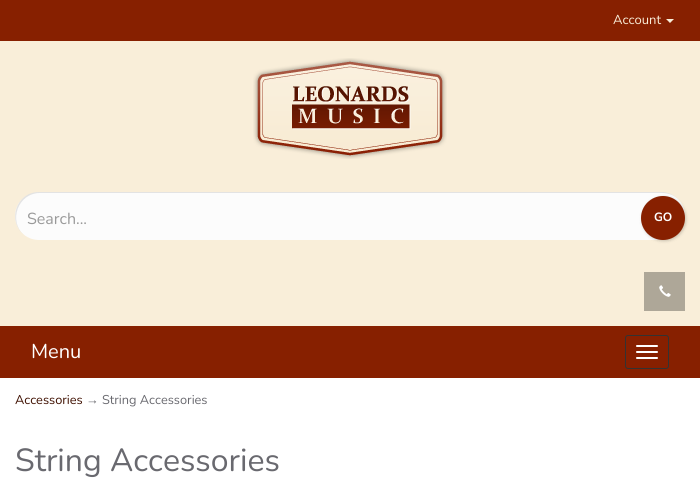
#include <cairo/cairo.h>
#include <math.h>
#include <stddef.h>

static cairo_t *cr;

static void use_color(int r, int g, int b) {
  cairo_set_source_rgb(cr, r / 255.0, g / 255.0, b / 255.0);
}

static void text(double x, double y, const char *s, const char *family, double size, int italic, int bold, int r, int g, int b) {
  cairo_select_font_face(cr, family, italic ? CAIRO_FONT_SLANT_ITALIC : CAIRO_FONT_SLANT_NORMAL,
    bold ? CAIRO_FONT_WEIGHT_BOLD : CAIRO_FONT_WEIGHT_NORMAL);
  cairo_set_font_size(cr, size);
  use_color(r, g, b);
  cairo_move_to(cr, x, y);
  cairo_show_text(cr, s);
}

static void box(double x, double y, double w, double h, int r, int g, int b) {
  use_color(r, g, b);
  cairo_rectangle(cr, x, y, w, h);
  cairo_fill(cr);
}

static void round_rect(double x, double y, double w, double h, double r) {
  cairo_new_sub_path(cr);
  cairo_arc(cr, x + w - r, y + h - r, r, 0, M_PI / 2);
  cairo_arc(cr, x + r, y + h - r, r, M_PI / 2, M_PI);
  cairo_arc(cr, x + r, y + r, r, M_PI, 1.5 * M_PI);
  cairo_arc(cr, x + w - r, y + r, r, 1.5 * M_PI, 2 * M_PI);
  cairo_close_path(cr);
}

static void shadow(double x, double y, double w, double h, double r, double blur, double alpha) {
  cairo_push_group_with_content(cr, CAIRO_CONTENT_ALPHA);
  cairo_set_operator(cr, CAIRO_OPERATOR_SOURCE);
  for (int i = 15; i >= -15 && fmin(w, h) + blur * i / 3 > 0; i -= 2) {
    double e = blur * i / 6;
    cairo_set_source_rgba(cr, 0, 0, 0, alpha * erfc((i - 1) / 8.5) / 2);
    round_rect(x - e, y - e, w + 2 * e, h + 2 * e, fmax(0, fmin(r + e + blur * .6, fmin(w, h) / 2 + e)));
    cairo_fill(cr);
  }
  cairo_pattern_t *soft = cairo_pop_group(cr);
  cairo_mask(cr, soft);
  cairo_pattern_destroy(soft);
}

static void picture(const char *path, double x, double y, double w, double h) {
  cairo_surface_t *image = cairo_image_surface_create_from_png(path);
  cairo_save(cr);
  cairo_set_source_surface(cr, image, x, y);
  cairo_rectangle(cr, x, y, w, h);
  cairo_fill(cr);
  cairo_restore(cr);
  cairo_surface_destroy(image);
}

static void draw(void) {
  use_color(255, 255, 255);
  cairo_paint(cr);
  box(0, 0, 700, 41, 135, 32, 0);
  use_color(249, 238, 217);
  cairo_new_path(cr);
  cairo_move_to(cr, 666, 19);
  cairo_line_to(cr, 674, 19);
  cairo_line_to(cr, 670, 23);
  cairo_close_path(cr);
  cairo_fill(cr);
  box(0, 41, 700, 285, 249, 238, 217);
  picture("img_01.png", 253, 58, 194, 101);
  use_color(252, 252, 252);
  round_rect(15, 192, 670, 48, 24);
  cairo_fill(cr);
  cairo_set_source_rgba(cr, 0, 0, 0, 0.1);
  cairo_new_path(cr);
  cairo_move_to(cr, 40, 193);
  cairo_line_to(cr, 662, 193);
  cairo_curve_to(cr, 669, 193, 676, 196, 680, 201);
  cairo_curve_to(cr, 676, 196, 670, 193, 664, 192);
  cairo_line_to(cr, 39, 192);
  cairo_curve_to(cr, 16, 192, 7, 221, 24, 235);
  cairo_curve_to(cr, 8, 221, 18, 193, 40, 193);
  cairo_close_path(cr);
  cairo_fill(cr);
  use_color(0, 0, 0);
  shadow(642, 197, 44, 44, 22, 1.5, 0.2);
  use_color(135, 32, 0);
  cairo_arc(cr, 663, 218, 22, 0, 2 * M_PI);
  cairo_fill(cr);
  box(644, 272, 41, 39, 174, 167, 152);
  picture("img_02.png", 659, 285, 12, 12);
  box(0, 326, 700, 52, 135, 32, 0);
  round_rect(625.5, 335.5, 43, 33, 2.5);
  use_color(51, 51, 51);
  cairo_set_line_width(cr, 1);
  cairo_stroke(cr);
  use_color(255, 255, 255);
  round_rect(636, 345, 22, 2, 1);
  cairo_fill(cr);
  round_rect(636, 351, 22, 2, 1);
  cairo_fill(cr);
  round_rect(636, 357, 22, 2, 1);
  cairo_fill(cr);
  text(613, 24, "Account", "Nunito", 13, 0, 0, 249, 238, 217);
  text(27, 224, "Search...", "Nunito", 16, 0, 0, 153, 153, 153);
  text(654, 221, "GO", "Nunito", 12, 0, 1, 255, 255, 255);
  text(31, 358, "Menu", "Nunito", 20, 0, 0, 255, 255, 255);
  text(15, 404, "Accessories", "Nunito", 12.75, 0, 0, 62, 15, 0);
  text(86, 404, "→", "Liberation Sans", 12.75, 0, 0, 105, 105, 111);
  text(102, 404, "String Accessories", "Nunito", 12.75, 0, 0, 105, 105, 111);
  text(15, 471, "String Accessories", "Nunito", 32, 0, 0, 105, 105, 111);
}

int main(void) {
  cairo_surface_t *surface = cairo_image_surface_create(CAIRO_FORMAT_RGB24, 700, 481);
  cr = cairo_create(surface);
  cairo_font_options_t *options = cairo_font_options_create();
  cairo_font_options_set_hint_metrics(options, CAIRO_HINT_METRICS_OFF);
  cairo_font_options_set_hint_style(options, CAIRO_HINT_STYLE_NONE);
  cairo_set_font_options(cr, options);
  cairo_set_miter_limit(cr, 4);
  draw();
  cairo_surface_write_to_png(surface, "out.png");
  cairo_font_options_destroy(options);
  cairo_destroy(cr);
  cairo_surface_destroy(surface);
  return 0;
}
